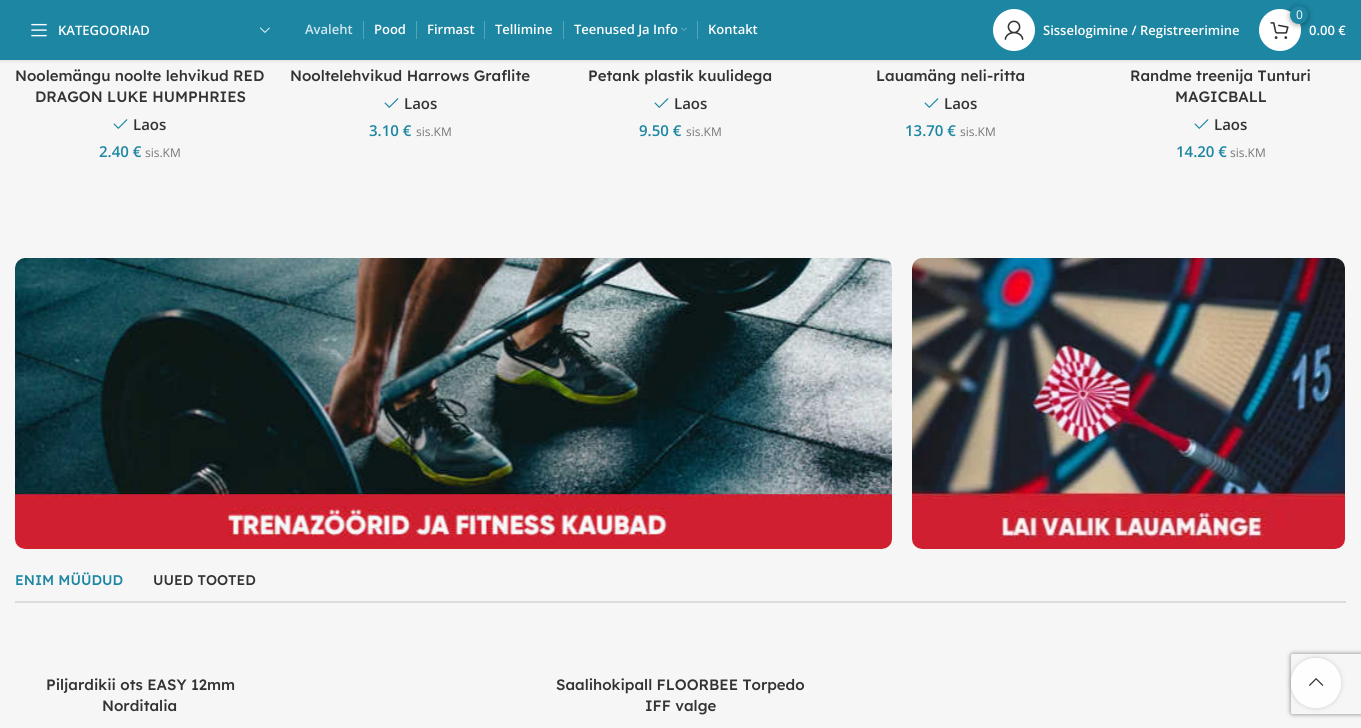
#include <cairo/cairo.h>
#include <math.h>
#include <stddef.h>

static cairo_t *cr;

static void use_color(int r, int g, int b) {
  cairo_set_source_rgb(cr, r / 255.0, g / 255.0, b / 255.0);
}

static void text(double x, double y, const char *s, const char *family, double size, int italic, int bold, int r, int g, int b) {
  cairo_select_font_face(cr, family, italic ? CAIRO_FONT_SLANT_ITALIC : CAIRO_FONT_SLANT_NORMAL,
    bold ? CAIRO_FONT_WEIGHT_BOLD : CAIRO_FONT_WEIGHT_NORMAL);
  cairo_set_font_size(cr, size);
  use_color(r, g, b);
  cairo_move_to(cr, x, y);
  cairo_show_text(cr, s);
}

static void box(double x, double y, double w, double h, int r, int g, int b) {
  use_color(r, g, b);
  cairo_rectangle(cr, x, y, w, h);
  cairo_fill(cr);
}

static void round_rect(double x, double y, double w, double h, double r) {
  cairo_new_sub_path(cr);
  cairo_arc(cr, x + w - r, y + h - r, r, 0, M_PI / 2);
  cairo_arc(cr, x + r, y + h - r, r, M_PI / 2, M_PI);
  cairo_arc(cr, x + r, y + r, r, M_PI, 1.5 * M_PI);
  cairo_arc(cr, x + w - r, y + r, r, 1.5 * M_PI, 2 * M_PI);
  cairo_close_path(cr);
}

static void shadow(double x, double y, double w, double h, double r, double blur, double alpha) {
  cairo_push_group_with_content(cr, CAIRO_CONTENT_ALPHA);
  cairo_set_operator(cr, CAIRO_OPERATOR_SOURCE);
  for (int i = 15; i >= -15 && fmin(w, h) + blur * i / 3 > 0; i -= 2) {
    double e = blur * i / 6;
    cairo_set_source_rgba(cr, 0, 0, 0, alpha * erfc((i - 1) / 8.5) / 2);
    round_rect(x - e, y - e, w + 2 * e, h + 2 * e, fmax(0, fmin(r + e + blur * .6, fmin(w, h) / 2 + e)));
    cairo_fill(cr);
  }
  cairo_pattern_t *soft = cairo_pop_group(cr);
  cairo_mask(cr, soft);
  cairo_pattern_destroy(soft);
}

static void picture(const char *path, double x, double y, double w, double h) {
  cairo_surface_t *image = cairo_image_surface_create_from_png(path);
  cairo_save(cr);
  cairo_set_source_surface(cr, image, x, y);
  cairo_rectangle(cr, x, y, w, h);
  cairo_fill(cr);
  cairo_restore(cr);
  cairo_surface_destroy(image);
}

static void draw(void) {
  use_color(246, 246, 246);
  cairo_paint(cr);
  use_color(0, 0, 0);
  shadow(0, 1, 1361, 60, 0, 1.5, 0.1);
  box(0, 0, 1361, 60, 28, 134, 163);
  picture("img_01.png", 31, 23, 16, 14);
  picture("img_02.png", 260, 27, 10, 6);
  box(363, 21, 1, 18, 85, 164, 186);
  box(416, 21, 1, 18, 85, 164, 186);
  box(484, 21, 1, 18, 85, 164, 186);
  box(563, 21, 1, 18, 85, 164, 186);
  picture("img_03.png", 681, 27, 6, 4);
  box(697, 21, 1, 18, 85, 164, 186);
  use_color(255, 255, 255);
  cairo_arc(cr, 1014, 30, 21, 0, 2 * M_PI);
  cairo_fill(cr);
  picture("img_04.png", 1004, 20, 20, 20);
  cairo_arc(cr, 1280, 30, 21, 0, 2 * M_PI);
  cairo_fill(cr);
  picture("img_05.png", 1270, 22, 19, 17);
  use_color(0, 0, 0);
  shadow(1290, 7, 18, 18, 9, 3, 0.37);
  use_color(28, 134, 163);
  cairo_arc(cr, 1299, 15, 9, 0, 2 * M_PI);
  cairo_fill(cr);
  picture("img_06.png", 113, 119, 15, 10);
  picture("img_06.png", 384, 98, 15, 10);
  picture("img_06.png", 654, 98, 15, 10);
  picture("img_06.png", 924, 98, 15, 10);
  picture("img_06.png", 1194, 119, 15, 10);
  picture("img_07.png", 15, 258, 877, 291);
  picture("img_08.png", 912, 258, 433, 291);
  box(15, 601, 1331, 2, 220, 220, 220);
  cairo_save(cr);
  cairo_set_fill_rule(cr, CAIRO_FILL_RULE_EVEN_ODD);
  cairo_new_path(cr);
  cairo_move_to(cr, 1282, 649);
  cairo_line_to(cr, 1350, 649);
  cairo_line_to(cr, 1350, 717);
  cairo_line_to(cr, 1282, 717);
  cairo_close_path(cr);
  cairo_move_to(cr, 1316, 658);
  cairo_curve_to(cr, 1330, 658, 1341, 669, 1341, 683);
  cairo_curve_to(cr, 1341, 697, 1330, 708, 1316, 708);
  cairo_curve_to(cr, 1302, 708, 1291, 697, 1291, 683);
  cairo_curve_to(cr, 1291, 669, 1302, 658, 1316, 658);
  cairo_close_path(cr);
  cairo_clip(cr);
  use_color(0, 0, 0);
  shadow(1291, 658, 50, 50, 25, 2.5, 0.17);
  cairo_restore(cr);
  cairo_set_source_rgba(cr, 1, 1, 1, 0.9);
  cairo_arc(cr, 1316, 683, 25, 0, 2 * M_PI);
  cairo_fill(cr);
  picture("img_09.png", 1309, 678, 15, 8);
  cairo_save(cr);
  cairo_set_fill_rule(cr, CAIRO_FILL_RULE_EVEN_ODD);
  cairo_new_path(cr);
  cairo_move_to(cr, 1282, 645);
  cairo_line_to(cr, 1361, 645);
  cairo_line_to(cr, 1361, 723);
  cairo_line_to(cr, 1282, 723);
  cairo_close_path(cr);
  cairo_move_to(cr, 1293, 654);
  cairo_line_to(cr, 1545, 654);
  cairo_curve_to(cr, 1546, 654, 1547, 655, 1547, 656);
  cairo_line_to(cr, 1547, 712);
  cairo_curve_to(cr, 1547, 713, 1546, 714, 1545, 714);
  cairo_line_to(cr, 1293, 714);
  cairo_curve_to(cr, 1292, 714, 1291, 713, 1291, 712);
  cairo_line_to(cr, 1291, 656);
  cairo_curve_to(cr, 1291, 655, 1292, 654, 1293, 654);
  cairo_close_path(cr);
  cairo_clip(cr);
  use_color(128, 128, 128);
  shadow(1291, 654, 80, 60, 2, 2.5, 1);
  cairo_restore(cr);
  text(58, 35, "KATEGOORIAD", "Open Sans SemiBold", 13, 0, 0, 255, 255, 255);
  text(305, 34, "Avaleht", "Open Sans SemiBold", 13, 0, 0, 210, 231, 237);
  text(374, 34, "Pood", "Open Sans SemiBold", 13, 0, 0, 255, 255, 255);
  text(427, 34, "Firmast", "Open Sans SemiBold", 13, 0, 0, 255, 255, 255);
  text(495, 34, "Tellimine", "Open Sans SemiBold", 13, 0, 0, 255, 255, 255);
  text(574, 34, "Teenused Ja Info", "Open Sans SemiBold", 13, 0, 0, 255, 255, 255);
  text(708, 34, "Kontakt", "Open Sans SemiBold", 13, 0, 0, 255, 255, 255);
  text(1043, 35, "Sisselogimine / Registreerimine", "Open Sans SemiBold", 13, 0, 0, 255, 255, 255);
  text(1296, 19, "0", "Open Sans", 12, 0, 0, 255, 255, 255);
  text(1309, 35, "0.00 €", "Open Sans SemiBold", 13, 0, 0, 255, 255, 255);
  text(15, 81, "Noolemängu noolte lehvikud RED", "Lexend Deca Medium", 15, 0, 0, 51, 51, 51);
  text(35, 102, "DRAGON LUKE HUMPHRIES", "Lexend Deca Medium", 15, 0, 0, 51, 51, 51);
  text(133, 130, "Laos", "Open Sans SemiBold", 15, 0, 0, 51, 51, 51);
  text(99, 157, "2.40 €", "Open Sans SemiBold", 15, 0, 0, 28, 134, 163);
  text(145, 157, "sis.KM", "Open Sans", 12, 0, 0, 118, 118, 118);
  text(290, 81, "Nooltelehvikud Harrows Graflite", "Lexend Deca Medium", 15, 0, 0, 51, 51, 51);
  text(404, 109, "Laos", "Open Sans SemiBold", 15, 0, 0, 51, 51, 51);
  text(369, 136, "3.10 €", "Open Sans SemiBold", 15, 0, 0, 28, 134, 163);
  text(416, 136, "sis.KM", "Open Sans", 12, 0, 0, 118, 118, 118);
  text(588, 81, "Petank plastik kuulidega", "Lexend Deca Medium", 15, 0, 0, 51, 51, 51);
  text(674, 109, "Laos", "Open Sans SemiBold", 15, 0, 0, 51, 51, 51);
  text(639, 136, "9.50 €", "Open Sans SemiBold", 15, 0, 0, 28, 134, 163);
  text(686, 136, "sis.KM", "Open Sans", 12, 0, 0, 118, 118, 118);
  text(876, 81, "Lauamäng neli-ritta", "Lexend Deca Medium", 15, 0, 0, 51, 51, 51);
  text(944, 109, "Laos", "Open Sans SemiBold", 15, 0, 0, 51, 51, 51);
  text(905, 136, "13.70 €", "Open Sans SemiBold", 15, 0, 0, 28, 134, 163);
  text(960, 136, "sis.KM", "Open Sans", 12, 0, 0, 118, 118, 118);
  text(1130, 81, "Randme treenija Tunturi", "Lexend Deca Medium", 15, 0, 0, 51, 51, 51);
  text(1175, 102, "MAGICBALL", "Lexend Deca Medium", 15, 0, 0, 51, 51, 51);
  text(1214, 130, "Laos", "Open Sans SemiBold", 15, 0, 0, 51, 51, 51);
  text(1176, 157, "14.20 €", "Open Sans SemiBold", 15, 0, 0, 28, 134, 163);
  text(1230, 157, "sis.KM", "Open Sans", 12, 0, 0, 118, 118, 118);
  text(15, 585, "ENIM MÜÜDUD", "Lexend Deca Medium", 14, 0, 0, 28, 134, 163);
  text(153, 585, "UUED TOOTED", "Lexend Deca Medium", 14, 0, 0, 51, 51, 51);
  text(46, 690, "Piljardikii ots EASY 12mm", "Lexend Deca Medium", 15, 0, 0, 51, 51, 51);
  text(102, 711, "Norditalia", "Lexend Deca Medium", 15, 0, 0, 51, 51, 51);
  text(556, 690, "Saalihokipall FLOORBEE Torpedo", "Lexend Deca Medium", 15, 0, 0, 51, 51, 51);
  text(645, 711, "IFF valge", "Lexend Deca Medium", 15, 0, 0, 51, 51, 51);
}

int main(void) {
  cairo_surface_t *surface = cairo_image_surface_create(CAIRO_FORMAT_RGB24, 1361, 728);
  cr = cairo_create(surface);
  cairo_font_options_t *options = cairo_font_options_create();
  cairo_font_options_set_hint_metrics(options, CAIRO_HINT_METRICS_OFF);
  cairo_font_options_set_hint_style(options, CAIRO_HINT_STYLE_NONE);
  cairo_set_font_options(cr, options);
  cairo_set_miter_limit(cr, 4);
  draw();
  cairo_surface_write_to_png(surface, "out.png");
  cairo_font_options_destroy(options);
  cairo_destroy(cr);
  cairo_surface_destroy(surface);
  return 0;
}
